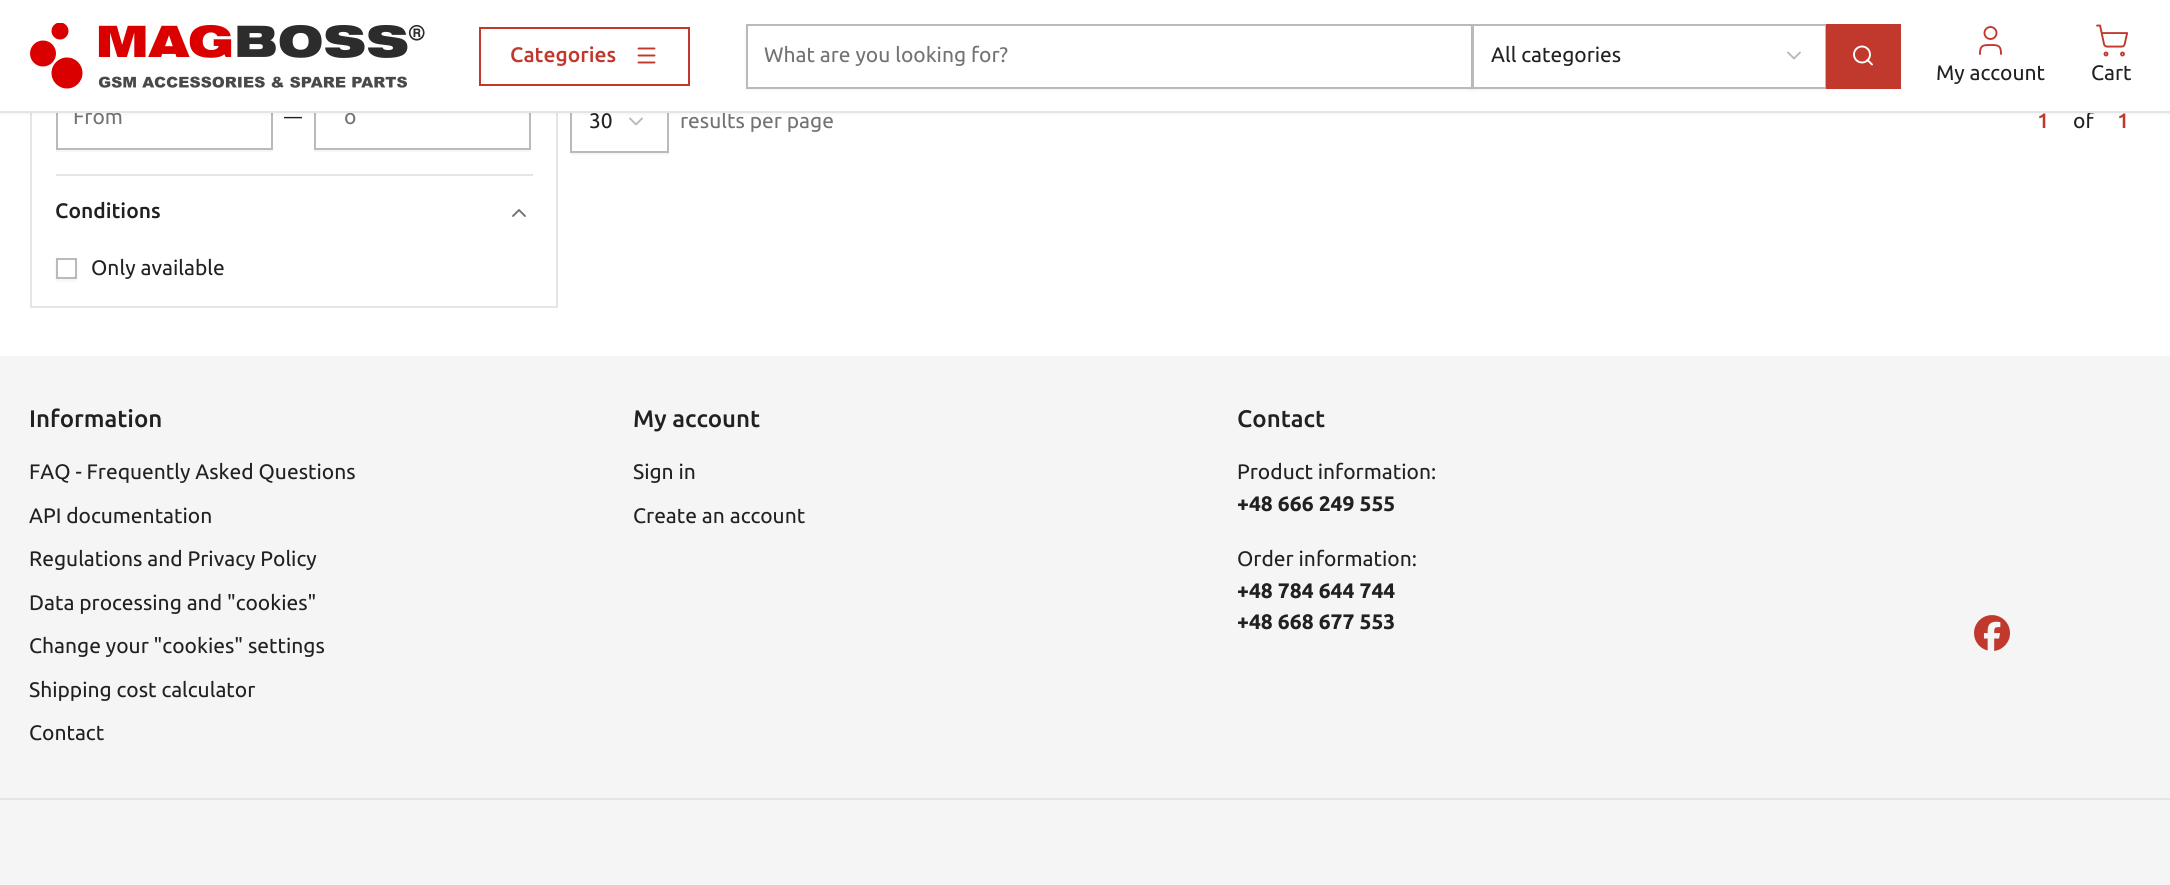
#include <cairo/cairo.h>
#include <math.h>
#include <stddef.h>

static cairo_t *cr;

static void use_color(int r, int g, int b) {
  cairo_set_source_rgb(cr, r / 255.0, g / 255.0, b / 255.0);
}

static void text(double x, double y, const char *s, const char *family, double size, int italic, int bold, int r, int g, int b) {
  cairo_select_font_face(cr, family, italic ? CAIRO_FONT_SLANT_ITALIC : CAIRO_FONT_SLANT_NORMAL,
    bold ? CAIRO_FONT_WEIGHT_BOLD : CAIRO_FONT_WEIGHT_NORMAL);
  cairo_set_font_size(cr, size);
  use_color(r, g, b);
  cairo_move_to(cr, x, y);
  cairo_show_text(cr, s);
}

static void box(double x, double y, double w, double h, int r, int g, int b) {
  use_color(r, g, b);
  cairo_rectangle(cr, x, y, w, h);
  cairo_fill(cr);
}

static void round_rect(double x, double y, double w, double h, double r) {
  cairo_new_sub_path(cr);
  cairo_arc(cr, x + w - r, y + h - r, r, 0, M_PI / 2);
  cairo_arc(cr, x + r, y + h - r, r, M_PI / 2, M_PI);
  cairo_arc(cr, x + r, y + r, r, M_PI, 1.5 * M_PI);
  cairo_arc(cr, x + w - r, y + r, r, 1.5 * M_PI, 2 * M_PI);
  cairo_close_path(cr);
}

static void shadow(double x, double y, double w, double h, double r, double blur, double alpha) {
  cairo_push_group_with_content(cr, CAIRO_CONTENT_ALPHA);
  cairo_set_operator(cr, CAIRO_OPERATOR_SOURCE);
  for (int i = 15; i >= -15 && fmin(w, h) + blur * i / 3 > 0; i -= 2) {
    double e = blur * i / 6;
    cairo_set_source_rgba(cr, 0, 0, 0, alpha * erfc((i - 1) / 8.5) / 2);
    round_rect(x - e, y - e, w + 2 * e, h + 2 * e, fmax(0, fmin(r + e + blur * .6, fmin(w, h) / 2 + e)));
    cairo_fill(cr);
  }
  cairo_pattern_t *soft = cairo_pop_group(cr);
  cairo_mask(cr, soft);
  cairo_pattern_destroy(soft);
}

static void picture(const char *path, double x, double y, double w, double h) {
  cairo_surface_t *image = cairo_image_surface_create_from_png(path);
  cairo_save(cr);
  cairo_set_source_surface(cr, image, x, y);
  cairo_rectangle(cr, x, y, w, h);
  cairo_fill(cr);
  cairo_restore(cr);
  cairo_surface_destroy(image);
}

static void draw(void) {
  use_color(255, 255, 255);
  cairo_paint(cr);
  cairo_rectangle(cr, 31, -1, 526, 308);
  use_color(229, 229, 229);
  cairo_stroke(cr);
  cairo_save(cr);
  cairo_rectangle(cr, 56, 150, 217, 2);
  cairo_clip(cr);
  use_color(0, 0, 0);
  shadow(56, 87, 217, 65, 0, 1.5, 0.05);
  cairo_restore(cr);
  cairo_rectangle(cr, 57, 87, 215, 62);
  use_color(184, 186, 188);
  cairo_stroke(cr);
  cairo_save(cr);
  cairo_rectangle(cr, 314, 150, 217, 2);
  cairo_clip(cr);
  use_color(0, 0, 0);
  shadow(314, 87, 217, 65, 0, 1.5, 0.05);
  cairo_restore(cr);
  cairo_rectangle(cr, 315, 87, 215, 62);
  cairo_stroke(cr);
  cairo_save(cr);
  cairo_rectangle(cr, 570, 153, 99, 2);
  cairo_clip(cr);
  use_color(0, 0, 0);
  shadow(570, 90, 99, 65, 0, 1.5, 0.05);
  cairo_restore(cr);
  cairo_rectangle(cr, 571, 90, 97, 62);
  cairo_stroke(cr);
  cairo_new_path(cr);
  cairo_move_to(cr, 630, 118.5);
  cairo_line_to(cr, 636, 124.5);
  cairo_line_to(cr, 642, 118.5);
  use_color(185, 185, 185);
  cairo_set_line_width(cr, 1.9);
  cairo_set_line_cap(cr, CAIRO_LINE_CAP_ROUND);
  cairo_set_line_join(cr, CAIRO_LINE_JOIN_ROUND);
  cairo_stroke(cr);
  use_color(0, 0, 0);
  shadow(0, 2, 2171, 112, 0, 1.5, 0.05);
  box(56, 174, 477, 2, 229, 229, 229);
  cairo_new_path(cr);
  cairo_move_to(cr, 525, 216);
  cairo_line_to(cr, 519, 210);
  cairo_line_to(cr, 513, 216);
  use_color(115, 115, 115);
  cairo_stroke(cr);
  use_color(0, 0, 0);
  shadow(56, 260, 21, 21, 0, 1.5, 0.05);
  use_color(255, 255, 255);
  cairo_rectangle(cr, 57, 259, 19, 19);
  cairo_fill_preserve(cr);
  use_color(184, 186, 188);
  cairo_set_line_width(cr, 2);
  cairo_set_line_cap(cr, CAIRO_LINE_CAP_BUTT);
  cairo_set_line_join(cr, CAIRO_LINE_JOIN_MITER);
  cairo_stroke(cr);
  round_rect(57, 259, 19, 19, 2);
  cairo_stroke(cr);
  box(0, 356, 2170, 529, 245, 245, 245);
  picture("img_04.png", 1974, 615, 36, 36);
  box(0, 798, 2170, 2, 229, 229, 229);
  text(73, 124, "From", "Ubuntu", 21, 0, 0, 115, 115, 115);
  box(0, 0, 2170, 111, 255, 255, 255);
  picture("img_03.png", 2096, 24, 33, 33);
  use_color(0, 0, 0);
  shadow(746, 26, 727, 64, 0, 1.5, 0.05);
  use_color(255, 255, 255);
  cairo_rectangle(cr, 747, 25, 725, 63);
  cairo_fill_preserve(cr);
  use_color(184, 186, 188);
  cairo_stroke(cr);
  use_color(0, 0, 0);
  shadow(1472, 26, 355, 64, 0, 1.5, 0.05);
  use_color(255, 255, 255);
  cairo_rectangle(cr, 1473, 25, 353, 63);
  cairo_fill_preserve(cr);
  use_color(184, 186, 188);
  cairo_stroke(cr);
  box(1826, 24, 75, 65, 192, 57, 44);
  cairo_new_path(cr);
  cairo_move_to(cr, 1872, 64.5);
  cairo_line_to(cr, 1867.5, 60);
  use_color(255, 255, 255);
  cairo_set_line_width(cr, 1.9);
  cairo_set_line_cap(cr, CAIRO_LINE_CAP_ROUND);
  cairo_set_line_join(cr, CAIRO_LINE_JOIN_ROUND);
  cairo_stroke(cr);
  cairo_arc(cr, 1862, 54.5, 8, 0, 2 * M_PI);
  cairo_set_line_cap(cr, CAIRO_LINE_CAP_BUTT);
  cairo_set_line_join(cr, CAIRO_LINE_JOIN_MITER);
  cairo_stroke(cr);
  cairo_new_path(cr);
  cairo_move_to(cr, 1788, 52.5);
  cairo_line_to(cr, 1794, 58.5);
  cairo_line_to(cr, 1800, 52.5);
  use_color(185, 185, 185);
  cairo_set_line_cap(cr, CAIRO_LINE_CAP_ROUND);
  cairo_set_line_join(cr, CAIRO_LINE_JOIN_ROUND);
  cairo_stroke(cr);
  text(1491, 62, "All categories", "Ubuntu", 21, 0, 0, 33, 33, 33);
  text(764, 62, "What are you looking for?", "Ubuntu", 21, 0, 0, 115, 115, 115);
  cairo_rectangle(cr, 480, 28, 209, 57);
  use_color(192, 57, 44);
  cairo_set_line_width(cr, 2);
  cairo_set_line_cap(cr, CAIRO_LINE_CAP_BUTT);
  cairo_set_line_join(cr, CAIRO_LINE_JOIN_MITER);
  cairo_stroke(cr);
  picture("img_02.png", 637, 47, 19, 17);
  text(510, 62, "Categories", "Ubuntu Medium", 21, 0, 0, 192, 57, 44);
  cairo_new_path(cr);
  cairo_arc(cr, 1990.5, 33, 6, 0, 2 * M_PI);
  cairo_set_line_width(cr, 1.9);
  cairo_stroke(cr);
  cairo_new_path(cr);
  cairo_move_to(cr, 2001, 54);
  cairo_curve_to(cr, 2001, 45.5, 1998.5, 45, 1990.5, 45);
  cairo_curve_to(cr, 1982.5, 45, 1980, 45.5, 1980, 54);
  cairo_set_line_cap(cr, CAIRO_LINE_CAP_ROUND);
  cairo_set_line_join(cr, CAIRO_LINE_JOIN_ROUND);
  cairo_stroke(cr);
  text(2091, 80, "Cart", "Ubuntu", 21, 0, 0, 33, 33, 33);
  text(1936, 80, "My account", "Ubuntu", 21, 0, 0, 33, 33, 33);
  picture("img_01.png", 30, 23, 395, 66);
  text(284, 123, "—", "Ubuntu", 18, 0, 0, 33, 33, 33);
  text(344, 124, "o", "Ubuntu", 21, 0, 0, 115, 115, 115);
  text(55, 218, "Conditions", "Ubuntu Medium", 21, 0, 0, 33, 33, 33);
  text(91, 275, "Only available", "Ubuntu", 21, 0, 0, 33, 33, 33);
  text(589, 128, "30", "Ubuntu", 21, 0, 0, 33, 33, 33);
  text(680, 128, "results per page", "Ubuntu", 21, 0, 0, 115, 115, 115);
  text(2037, 128, "1", "Ubuntu Medium", 21, 0, 0, 192, 57, 44);
  text(2073, 128, "of", "Ubuntu", 21, 0, 0, 33, 33, 33);
  box(0, 111, 2170, 2, 229, 229, 229);
  text(2117, 128, "1", "Ubuntu Medium", 21, 0, 0, 192, 57, 44);
  text(29, 427, "Information", "Ubuntu Medium", 24, 0, 0, 33, 33, 33);
  text(29, 479, "FAQ - Frequently Asked Questions", "Ubuntu", 21, 0, 0, 33, 33, 33);
  text(29, 523, "API documentation", "Ubuntu", 21, 0, 0, 33, 33, 33);
  text(29, 566, "Regulations and Privacy Policy", "Ubuntu", 21, 0, 0, 33, 33, 33);
  text(29, 610, "Data processing and \"cookies\"", "Ubuntu", 21, 0, 0, 33, 33, 33);
  text(29, 653, "Change your \"cookies\" settings", "Ubuntu", 21, 0, 0, 33, 33, 33);
  text(29, 697, "Shipping cost calculator", "Ubuntu", 21, 0, 0, 33, 33, 33);
  text(29, 740, "Contact", "Ubuntu", 21, 0, 0, 33, 33, 33);
  text(633, 427, "My account", "Ubuntu Medium", 24, 0, 0, 33, 33, 33);
  text(633, 479, "Sign in", "Ubuntu", 21, 0, 0, 33, 33, 33);
  text(633, 523, "Create an account", "Ubuntu", 21, 0, 0, 33, 33, 33);
  text(1237, 427, "Contact", "Ubuntu Medium", 24, 0, 0, 33, 33, 33);
  text(1237, 479, "Product information:", "Ubuntu", 21, 0, 0, 33, 33, 33);
  text(1237, 511, "+48 666 249 555", "Ubuntu", 21, 0, 1, 33, 33, 33);
  text(1237, 566, "Order information:", "Ubuntu", 21, 0, 0, 33, 33, 33);
  text(1237, 598, "+48 784 644 744", "Ubuntu", 21, 0, 1, 33, 33, 33);
  text(1237, 629, "+48 668 677 553", "Ubuntu", 21, 0, 1, 33, 33, 33);
}

int main(void) {
  cairo_surface_t *surface = cairo_image_surface_create(CAIRO_FORMAT_RGB24, 2170, 885);
  cr = cairo_create(surface);
  cairo_font_options_t *options = cairo_font_options_create();
  cairo_font_options_set_hint_metrics(options, CAIRO_HINT_METRICS_OFF);
  cairo_font_options_set_hint_style(options, CAIRO_HINT_STYLE_NONE);
  cairo_set_font_options(cr, options);
  cairo_set_miter_limit(cr, 4);
  draw();
  cairo_surface_write_to_png(surface, "out.png");
  cairo_font_options_destroy(options);
  cairo_destroy(cr);
  cairo_surface_destroy(surface);
  return 0;
}
